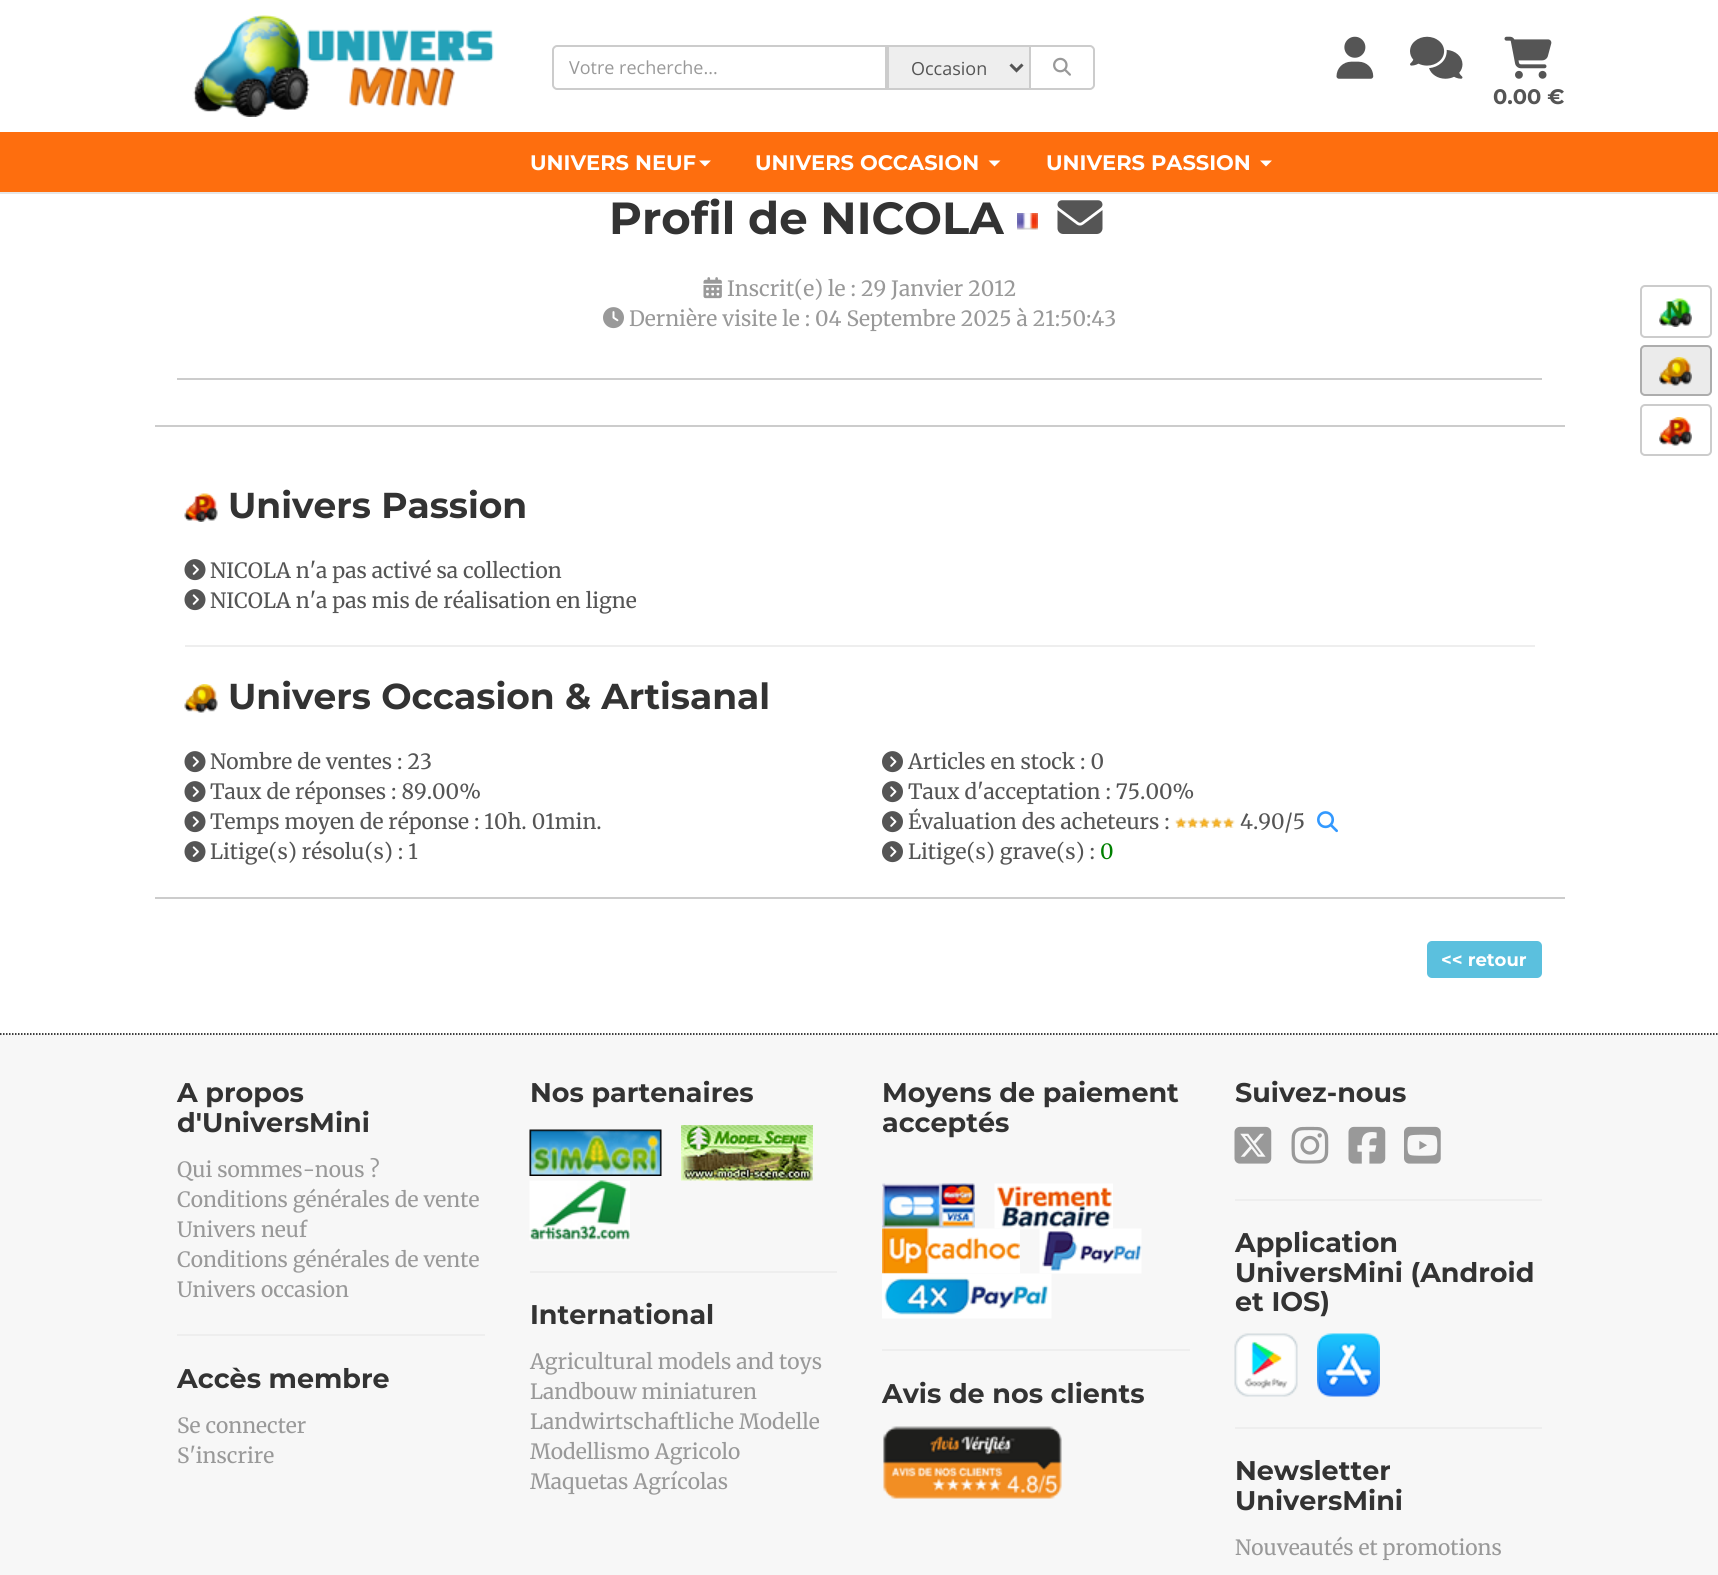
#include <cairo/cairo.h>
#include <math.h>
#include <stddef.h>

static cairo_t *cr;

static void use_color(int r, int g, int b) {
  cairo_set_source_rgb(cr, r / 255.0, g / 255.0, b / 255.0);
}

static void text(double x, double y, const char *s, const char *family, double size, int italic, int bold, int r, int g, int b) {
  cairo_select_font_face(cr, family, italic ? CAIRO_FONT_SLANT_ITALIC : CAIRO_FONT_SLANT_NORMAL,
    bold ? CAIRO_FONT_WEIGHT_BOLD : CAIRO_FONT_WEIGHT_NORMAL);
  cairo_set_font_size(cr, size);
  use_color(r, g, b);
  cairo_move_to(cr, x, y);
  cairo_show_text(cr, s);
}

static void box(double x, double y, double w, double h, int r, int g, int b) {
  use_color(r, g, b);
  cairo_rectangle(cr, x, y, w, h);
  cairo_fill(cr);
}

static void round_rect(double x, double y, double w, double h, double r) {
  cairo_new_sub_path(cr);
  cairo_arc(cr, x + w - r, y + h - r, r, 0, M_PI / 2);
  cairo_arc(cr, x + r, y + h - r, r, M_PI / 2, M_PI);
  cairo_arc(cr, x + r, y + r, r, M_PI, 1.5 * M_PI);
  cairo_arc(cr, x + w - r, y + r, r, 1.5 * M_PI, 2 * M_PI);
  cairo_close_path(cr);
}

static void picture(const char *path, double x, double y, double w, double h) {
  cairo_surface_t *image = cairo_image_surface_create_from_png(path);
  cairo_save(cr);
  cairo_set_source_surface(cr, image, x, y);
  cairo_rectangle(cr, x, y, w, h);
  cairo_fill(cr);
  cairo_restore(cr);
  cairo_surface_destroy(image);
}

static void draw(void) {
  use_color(255, 255, 255);
  cairo_paint(cr);
  box(0, 192, 1718, 2, 230, 230, 230);
  picture("img_01.png", 193, 15, 301, 102);
  cairo_new_path(cr);
  cairo_move_to(cr, 557, 46);
  cairo_line_to(cr, 886, 46);
  cairo_line_to(cr, 886, 89);
  cairo_line_to(cr, 557, 89);
  cairo_curve_to(cr, 555, 89, 553, 87, 553, 85);
  cairo_line_to(cr, 553, 50);
  cairo_curve_to(cr, 553, 48, 555, 46, 557, 46);
  cairo_close_path(cr);
  use_color(204, 204, 204);
  cairo_stroke(cr);
  cairo_new_path(cr);
  cairo_move_to(cr, 1030, 46);
  cairo_line_to(cr, 1090, 46);
  cairo_curve_to(cr, 1092, 46, 1094, 48, 1094, 50);
  cairo_line_to(cr, 1094, 85);
  cairo_curve_to(cr, 1094, 87, 1092, 89, 1090, 89);
  cairo_line_to(cr, 1030, 89);
  cairo_close_path(cr);
  cairo_stroke(cr);
  use_color(238, 238, 238);
  cairo_rectangle(cr, 888, 46, 142, 43);
  cairo_fill_preserve(cr);
  use_color(204, 204, 204);
  cairo_stroke(cr);
  cairo_new_path(cr);
  cairo_move_to(cr, 1010.5, 64.5);
  cairo_line_to(cr, 1016.5, 70.5);
  cairo_line_to(cr, 1022.5, 64.5);
  use_color(85, 85, 85);
  cairo_set_line_width(cr, 3);
  cairo_stroke(cr);
  picture("img_02.png", 1053, 57, 18, 19);
  picture("img_03.png", 1336, 36, 38, 43);
  picture("img_04.png", 1410, 36, 53, 43);
  picture("img_05.png", 1504, 36, 48, 43);
  box(0, 132, 1718, 60, 254, 110, 14);
  use_color(255, 255, 255);
  cairo_new_path(cr);
  cairo_move_to(cr, 699, 160.5);
  cairo_line_to(cr, 711, 160.5);
  cairo_line_to(cr, 705, 166.5);
  cairo_close_path(cr);
  cairo_fill(cr);
  cairo_new_path(cr);
  cairo_move_to(cr, 988.5, 160.5);
  cairo_line_to(cr, 1000.5, 160.5);
  cairo_line_to(cr, 994.5, 166.5);
  cairo_close_path(cr);
  cairo_fill(cr);
  cairo_new_path(cr);
  cairo_move_to(cr, 1260, 160.5);
  cairo_line_to(cr, 1272, 160.5);
  cairo_line_to(cr, 1266, 166.5);
  cairo_close_path(cr);
  cairo_fill(cr);
  box(177, 378, 1365, 2, 204, 204, 204);
  picture("img_06.png", 1017, 213, 21, 17);
  picture("img_07.png", 1057, 200, 46, 34);
  picture("img_08.png", 703, 277, 19, 22);
  picture("img_09.png", 603, 307, 21, 22);
  box(155, 425, 1410, 2, 204, 204, 204);
  box(155, 897, 1410, 2, 204, 204, 204);
  picture("img_10.png", 184, 493, 34, 29);
  picture("img_11.png", 184, 559, 22, 22);
  picture("img_11.png", 184, 589, 22, 22);
  box(185, 645, 1350, 2, 238, 238, 238);
  picture("img_12.png", 184, 684, 34, 29);
  picture("img_11.png", 184, 751, 22, 22);
  picture("img_11.png", 184, 781, 22, 22);
  picture("img_11.png", 184, 811, 22, 22);
  picture("img_11.png", 184, 841, 22, 22);
  picture("img_13.png", 882, 751, 21, 22);
  picture("img_13.png", 882, 781, 21, 22);
  picture("img_13.png", 882, 811, 21, 22);
  picture("img_14.png", 1174, 817, 61, 11);
  picture("img_15.png", 1317, 811, 21, 22);
  picture("img_13.png", 882, 841, 21, 22);
  use_color(91, 192, 222);
  round_rect(1427, 941, 115, 37, 5);
  cairo_fill(cr);
  box(0, 1034, 1718, 541, 247, 247, 247);
  cairo_new_path(cr);
  cairo_move_to(cr, 0, 1034);
  cairo_line_to(cr, 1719, 1034);
  use_color(0, 0, 0);
  cairo_set_line_width(cr, 1.5);
  cairo_set_dash(cr, (double[]){1.5, 1.5}, 2, 0);
  cairo_stroke(cr);
  box(177, 1334, 308, 2, 238, 238, 238);
  picture("img_16.png", 529, 1129, 133, 47);
  picture("img_17.png", 681, 1125, 132, 56);
  picture("img_18.png", 529, 1180, 101, 61);
  box(530, 1271, 307, 2, 238, 238, 238);
  picture("img_19.png", 882, 1183, 93, 46);
  picture("img_20.png", 994, 1183, 119, 46);
  picture("img_21.png", 882, 1228, 138, 46);
  picture("img_22.png", 1039, 1228, 103, 46);
  picture("img_23.png", 882, 1273, 170, 46);
  box(882, 1349, 308, 2, 238, 238, 238);
  picture("img_24.png", 883, 1426, 179, 73);
  picture("img_25.png", 1234, 1126, 38, 38);
  picture("img_26.png", 1291, 1126, 38, 38);
  picture("img_27.png", 1348, 1126, 38, 38);
  picture("img_28.png", 1404, 1126, 37, 38);
  box(1235, 1199, 307, 2, 238, 238, 238);
  picture("img_29.png", 1234, 1333, 64, 64);
  picture("img_30.png", 1317, 1333, 63, 64);
  box(1235, 1427, 307, 2, 238, 238, 238);
  round_rect(1641, 286, 70, 51, 4);
  use_color(204, 204, 204);
  cairo_set_line_width(cr, 2);
  cairo_set_dash(cr, NULL, 0, 0);
  cairo_stroke(cr);
  picture("img_31.png", 1659, 298, 33, 29);
  use_color(235, 235, 235);
  round_rect(1641, 346, 70, 49, 4);
  cairo_fill_preserve(cr);
  use_color(173, 173, 173);
  cairo_stroke(cr);
  picture("img_32.png", 1659, 357, 33, 29);
  round_rect(1641, 405, 70, 50, 4);
  use_color(204, 204, 204);
  cairo_stroke(cr);
  picture("img_33.png", 1659, 417, 33, 29);
  text(569, 74, "Votre recherche...", "Open Sans", 18, 0, 0, 153, 153, 153);
  text(911, 75, "Occasion", "Open Sans", 18, 0, 0, 85, 85, 85);
  text(1493, 104, "0.00 €", "Montserrat", 21, 0, 1, 85, 85, 85);
  text(530, 170, "UNIVERS NEUF", "Montserrat", 21, 0, 1, 255, 255, 255);
  text(755, 170, "UNIVERS OCCASION", "Montserrat", 21, 0, 1, 255, 255, 255);
  text(1046, 170, "UNIVERS PASSION", "Montserrat", 21, 0, 1, 255, 255, 255);
  text(609, 234, "Profil de NICOLA", "Montserrat", 45, 0, 1, 51, 51, 51);
  text(727, 296, "Inscrit(e) le : 29 Janvier 2012", "Merriweather", 21, 0, 0, 153, 153, 153);
  text(629, 326, "Dernière visite le : 04 Septembre 2025 à 21:50:43", "Merriweather", 21, 0, 0, 153, 153, 153);
  text(228, 518, "Univers Passion", "Montserrat", 36, 0, 1, 51, 51, 51);
  text(210, 578, "NICOLA n'a pas activé sa collection", "Merriweather", 21, 0, 0, 85, 85, 85);
  text(210, 608, "NICOLA n'a pas mis de réalisation en ligne", "Merriweather", 21, 0, 0, 85, 85, 85);
  text(228, 709, "Univers Occasion & Artisanal", "Montserrat", 36, 0, 1, 51, 51, 51);
  text(210, 769, "Nombre de ventes : 23", "Merriweather", 21, 0, 0, 85, 85, 85);
  text(210, 799, "Taux de réponses : 89.00%", "Merriweather", 21, 0, 0, 85, 85, 85);
  text(210, 829, "Temps moyen de réponse : 10h. 01min.", "Merriweather", 21, 0, 0, 85, 85, 85);
  text(210, 859, "Litige(s) résolu(s) : 1", "Merriweather", 21, 0, 0, 85, 85, 85);
  text(908, 769, "Articles en stock : 0", "Merriweather", 21, 0, 0, 85, 85, 85);
  text(908, 799, "Taux d'acceptation : 75.00%", "Merriweather", 21, 0, 0, 85, 85, 85);
  text(908, 829, "Évaluation des acheteurs :", "Merriweather", 21, 0, 0, 85, 85, 85);
  text(1240, 829, "4.90/5", "Merriweather", 21, 0, 0, 85, 85, 85);
  text(908, 859, "Litige(s) grave(s) :", "Merriweather", 21, 0, 0, 85, 85, 85);
  text(1100, 859, "0", "Merriweather", 21, 0, 0, 0, 128, 0);
  text(1441, 966, "<< retour", "Montserrat", 18, 0, 1, 255, 255, 255);
  text(177, 1102, "A propos", "Montserrat", 27, 0, 1, 51, 51, 51);
  text(177, 1132, "d'UniversMini", "Montserrat", 27, 0, 1, 51, 51, 51);
  text(177, 1177, "Qui sommes-nous ?", "Merriweather", 21, 0, 0, 153, 153, 153);
  text(177, 1207, "Conditions générales de vente", "Merriweather", 21, 0, 0, 153, 153, 153);
  text(177, 1237, "Univers neuf", "Merriweather", 21, 0, 0, 153, 153, 153);
  text(177, 1267, "Conditions générales de vente", "Merriweather", 21, 0, 0, 153, 153, 153);
  text(177, 1297, "Univers occasion", "Merriweather", 21, 0, 0, 153, 153, 153);
  text(177, 1388, "Accès membre", "Montserrat", 27, 0, 1, 51, 51, 51);
  text(177, 1433, "Se connecter", "Merriweather", 21, 0, 0, 153, 153, 153);
  text(177, 1463, "S'inscrire", "Merriweather", 21, 0, 0, 153, 153, 153);
  text(530, 1102, "Nos partenaires", "Montserrat", 27, 0, 1, 51, 51, 51);
  text(530, 1324, "International", "Montserrat", 27, 0, 1, 51, 51, 51);
  text(530, 1369, "Agricultural models and toys", "Merriweather", 21, 0, 0, 153, 153, 153);
  text(530, 1399, "Landbouw miniaturen", "Merriweather", 21, 0, 0, 153, 153, 153);
  text(530, 1429, "Landwirtschaftliche Modelle", "Merriweather", 21, 0, 0, 153, 153, 153);
  text(530, 1459, "Modellismo Agricolo", "Merriweather", 21, 0, 0, 153, 153, 153);
  text(530, 1489, "Maquetas Agrícolas", "Merriweather", 21, 0, 0, 153, 153, 153);
  text(882, 1102, "Moyens de paiement", "Montserrat", 27, 0, 1, 51, 51, 51);
  text(882, 1132, "acceptés", "Montserrat", 27, 0, 1, 51, 51, 51);
  text(882, 1403, "Avis de nos clients", "Montserrat", 27, 0, 1, 51, 51, 51);
  text(1235, 1102, "Suivez-nous", "Montserrat", 27, 0, 1, 51, 51, 51);
  text(1235, 1252, "Application", "Montserrat", 27, 0, 1, 51, 51, 51);
  text(1235, 1282, "UniversMini (Android", "Montserrat", 27, 0, 1, 51, 51, 51);
  text(1235, 1311, "et IOS)", "Montserrat", 27, 0, 1, 51, 51, 51);
  text(1235, 1480, "Newsletter", "Montserrat", 27, 0, 1, 51, 51, 51);
  text(1235, 1510, "UniversMini", "Montserrat", 27, 0, 1, 51, 51, 51);
  text(1235, 1555, "Nouveautés et promotions", "Merriweather", 21, 0, 0, 153, 153, 153);
}

int main(void) {
  cairo_surface_t *surface = cairo_image_surface_create(CAIRO_FORMAT_RGB24, 1718, 1575);
  cr = cairo_create(surface);
  cairo_font_options_t *options = cairo_font_options_create();
  cairo_font_options_set_hint_metrics(options, CAIRO_HINT_METRICS_OFF);
  cairo_font_options_set_hint_style(options, CAIRO_HINT_STYLE_NONE);
  cairo_set_font_options(cr, options);
  cairo_set_miter_limit(cr, 4);
  draw();
  cairo_surface_write_to_png(surface, "out.png");
  cairo_font_options_destroy(options);
  cairo_destroy(cr);
  cairo_surface_destroy(surface);
  return 0;
}
